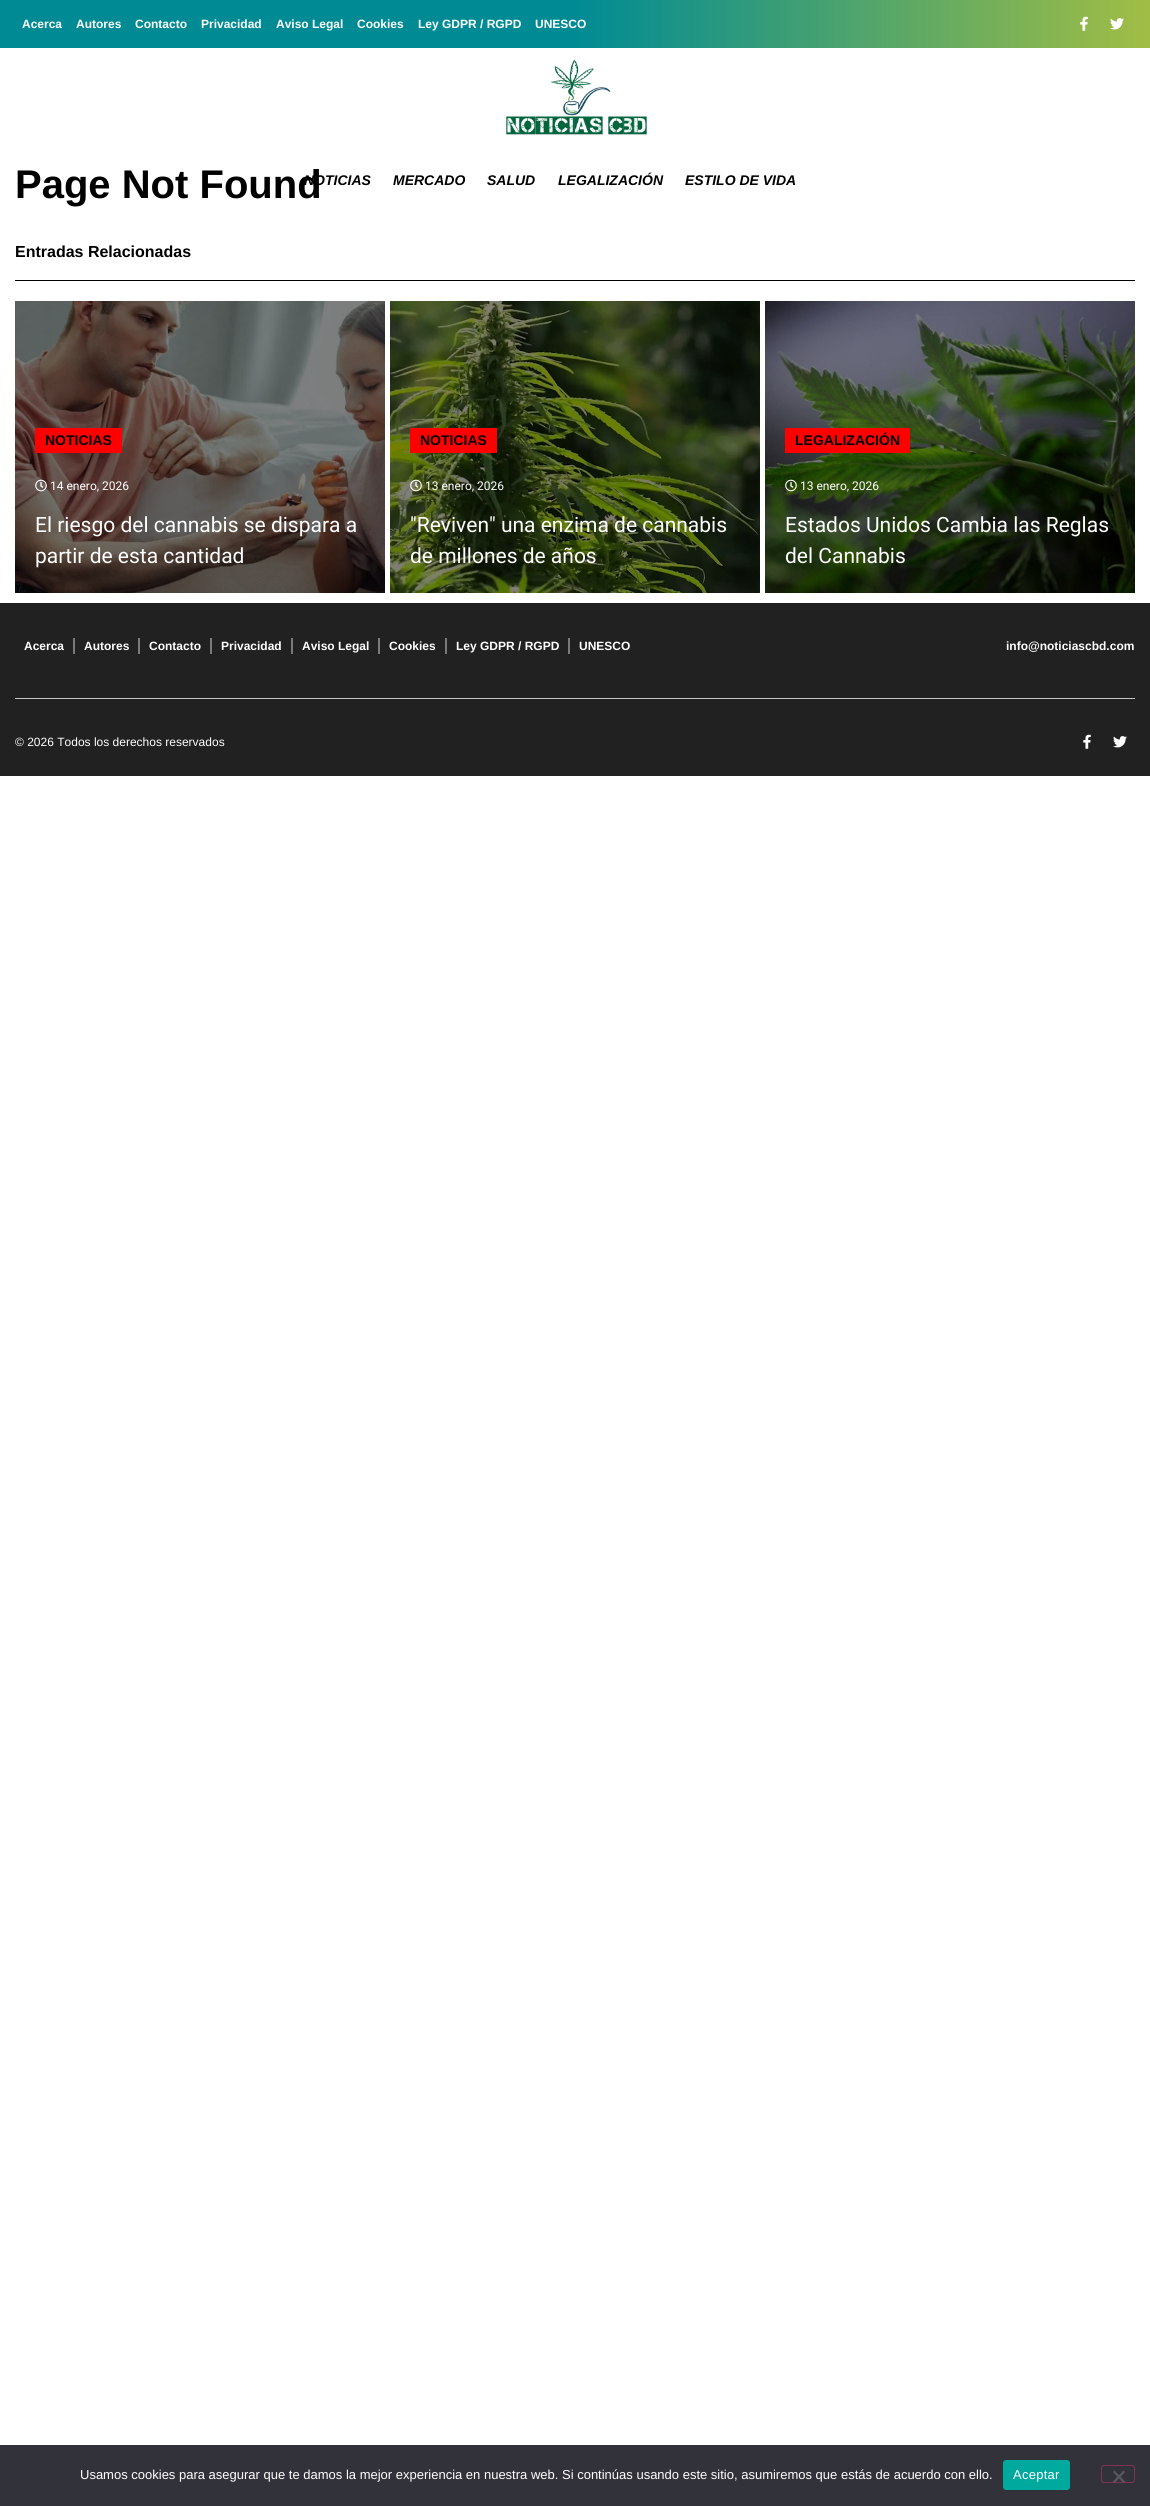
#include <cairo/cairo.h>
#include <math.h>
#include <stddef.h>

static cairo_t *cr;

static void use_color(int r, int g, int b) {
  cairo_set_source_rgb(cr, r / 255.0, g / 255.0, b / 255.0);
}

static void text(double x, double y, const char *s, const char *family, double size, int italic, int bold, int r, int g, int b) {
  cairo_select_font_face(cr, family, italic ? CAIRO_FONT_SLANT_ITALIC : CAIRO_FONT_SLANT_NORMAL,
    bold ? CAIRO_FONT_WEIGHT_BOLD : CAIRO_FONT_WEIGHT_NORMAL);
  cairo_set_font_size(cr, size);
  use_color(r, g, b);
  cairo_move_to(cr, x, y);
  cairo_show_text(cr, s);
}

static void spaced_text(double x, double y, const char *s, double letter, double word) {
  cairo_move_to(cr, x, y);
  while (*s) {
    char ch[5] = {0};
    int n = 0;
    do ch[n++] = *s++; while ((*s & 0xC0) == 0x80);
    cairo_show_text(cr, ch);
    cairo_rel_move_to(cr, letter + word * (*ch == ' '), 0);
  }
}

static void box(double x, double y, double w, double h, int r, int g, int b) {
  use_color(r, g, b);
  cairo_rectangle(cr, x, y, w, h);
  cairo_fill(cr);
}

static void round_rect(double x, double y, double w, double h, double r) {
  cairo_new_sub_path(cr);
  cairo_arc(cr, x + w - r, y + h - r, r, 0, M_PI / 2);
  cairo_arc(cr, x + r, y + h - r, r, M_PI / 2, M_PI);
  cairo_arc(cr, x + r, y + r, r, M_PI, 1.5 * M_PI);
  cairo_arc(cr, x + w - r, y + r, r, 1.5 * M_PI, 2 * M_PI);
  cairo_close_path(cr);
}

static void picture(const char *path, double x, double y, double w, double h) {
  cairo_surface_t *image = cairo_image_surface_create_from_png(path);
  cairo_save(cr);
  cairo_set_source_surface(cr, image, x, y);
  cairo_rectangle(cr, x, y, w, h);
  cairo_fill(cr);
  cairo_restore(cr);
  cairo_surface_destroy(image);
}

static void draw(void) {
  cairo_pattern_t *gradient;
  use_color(255, 255, 255);
  cairo_paint(cr);
  gradient = cairo_pattern_create_linear(0, 24, 1150, 24);
  cairo_pattern_add_color_stop_rgba(gradient, 0.5, 0, 0.545, 0.58, 1);
  cairo_pattern_add_color_stop_rgba(gradient, 1, 0.635, 0.741, 0.271, 1);
  cairo_set_source(cr, gradient);
  cairo_pattern_destroy(gradient);
  cairo_rectangle(cr, 0, 0, 1150, 48);
  cairo_fill(cr);
  picture("img_01.png", 1080, 16, 8, 15);
  picture("img_02.png", 1110, 18, 14, 12);
  picture("img_03.png", 506, 59, 141, 76);
  box(15, 280, 1120, 1, 0, 0, 0);
  picture("img_04.png", 15, 301, 370, 292);
  box(35, 428, 87, 25, 255, 0, 0);
  picture("img_05.png", 35, 479, 12, 13);
  picture("img_06.png", 390, 301, 370, 292);
  box(410, 428, 87, 25, 255, 0, 0);
  picture("img_07.png", 410, 479, 12, 13);
  picture("img_08.png", 765, 301, 370, 292);
  box(785, 428, 125, 25, 255, 0, 0);
  picture("img_09.png", 785, 479, 12, 13);
  box(0, 603, 1150, 173, 33, 33, 33);
  box(73, 638, 2, 16, 122, 122, 122);
  box(138, 638, 2, 16, 122, 122, 122);
  box(210, 638, 2, 16, 122, 122, 122);
  box(291, 638, 2, 16, 122, 122, 122);
  box(378, 638, 2, 16, 122, 122, 122);
  box(445, 638, 2, 16, 122, 122, 122);
  box(568, 638, 2, 16, 122, 122, 122);
  box(15, 698, 1120, 1, 196, 196, 196);
  picture("img_10.png", 1083, 734, 8, 15);
  picture("img_11.png", 1113, 736, 14, 12);
  box(0, 2445, 1150, 61, 50, 50, 58);
  use_color(0, 169, 157);
  round_rect(1003, 2460, 67, 30, 3);
  cairo_fill(cr);
  round_rect(1101.5, 2465.5, 33, 17, 2.5);
  use_color(127, 51, 80);
  cairo_set_line_width(cr, 1);
  cairo_stroke(cr);
  use_color(89, 89, 93);
  cairo_new_path(cr);
  cairo_move_to(cr, 1123.5, 2470.5);
  cairo_line_to(cr, 1125, 2472);
  cairo_line_to(cr, 1114.5, 2483);
  cairo_line_to(cr, 1113, 2481.5);
  cairo_close_path(cr);
  cairo_fill(cr);
  cairo_new_path(cr);
  cairo_move_to(cr, 1113, 2472);
  cairo_line_to(cr, 1114.5, 2470.5);
  cairo_line_to(cr, 1125, 2481.5);
  cairo_line_to(cr, 1123.5, 2483);
  cairo_close_path(cr);
  cairo_fill(cr);
  text(22, 28, "Acerca", "Liberation Sans", 12, 0, 1, 255, 255, 255);
  text(76, 28, "Autores", "Liberation Sans", 12, 0, 1, 255, 255, 255);
  text(135, 28, "Contacto", "Liberation Sans", 12, 0, 1, 255, 255, 255);
  text(201, 28, "Privacidad", "Liberation Sans", 12, 0, 1, 255, 255, 255);
  text(276, 28, "Aviso Legal", "Liberation Sans", 12, 0, 1, 255, 255, 255);
  text(357, 28, "Cookies", "Liberation Sans", 12, 0, 1, 255, 255, 255);
  text(418, 28, "Ley GDPR / RGPD", "Liberation Sans", 12, 0, 1, 255, 255, 255);
  text(535, 28, "UNESCO", "Liberation Sans", 12, 0, 1, 255, 255, 255);
  text(393, 185, "MERCADO", "Liberation Sans", 14, 1, 1, 0, 0, 0);
  text(487, 185, "SALUD", "Liberation Sans", 14, 1, 1, 0, 0, 0);
  text(558, 185, "LEGALIZACIÓN", "Liberation Sans", 14, 1, 1, 0, 0, 0);
  text(685, 185, "ESTILO DE VIDA", "Liberation Sans", 14, 1, 1, 0, 0, 0);
  text(15, 198, "Page Not Found", "Liberation Sans", 40, 0, 1, 0, 0, 0);
  text(304, 185, "NOTICIAS", "Liberation Sans", 14, 1, 1, 0, 0, 0);
  text(15, 257, "Entradas Relacionadas", "Liberation Sans", 16, 0, 1, 0, 0, 0);
  text(45, 445, "NOTICIAS", "Liberation Sans", 14, 0, 1, 0, 0, 0);
  text(50, 490, "14 enero, 2026", "Roboto", 12, 0, 0, 255, 255, 255);
  text(35, 532, "El riesgo del cannabis se dispara a", "Roboto", 21, 0, 0, 255, 255, 255);
  text(35, 563, "partir de esta cantidad", "Roboto", 21, 0, 0, 255, 255, 255);
  text(420, 445, "NOTICIAS", "Liberation Sans", 14, 0, 1, 0, 0, 0);
  text(425, 490, "13 enero, 2026", "Roboto", 12, 0, 0, 255, 255, 255);
  text(410, 532, "\"Reviven\" una enzima de cannabis", "Roboto", 21, 0, 0, 255, 255, 255);
  text(410, 563, "de millones de años", "Roboto", 21, 0, 0, 255, 255, 255);
  text(795, 445, "LEGALIZACIÓN", "Liberation Sans", 14, 0, 1, 0, 0, 0);
  text(800, 490, "13 enero, 2026", "Roboto", 12, 0, 0, 255, 255, 255);
  text(785, 532, "Estados Unidos Cambia las Reglas", "Roboto", 21, 0, 0, 255, 255, 255);
  text(785, 563, "del Cannabis", "Roboto", 21, 0, 0, 255, 255, 255);
  text(24, 650, "Acerca", "Liberation Sans", 12, 0, 1, 255, 255, 255);
  text(84, 650, "Autores", "Liberation Sans", 12, 0, 1, 255, 255, 255);
  text(149, 650, "Contacto", "Liberation Sans", 12, 0, 1, 255, 255, 255);
  text(221, 650, "Privacidad", "Liberation Sans", 12, 0, 1, 255, 255, 255);
  text(302, 650, "Aviso Legal", "Liberation Sans", 12, 0, 1, 255, 255, 255);
  text(389, 650, "Cookies", "Liberation Sans", 12, 0, 1, 255, 255, 255);
  text(456, 650, "Ley GDPR / RGPD", "Liberation Sans", 12, 0, 1, 255, 255, 255);
  text(579, 650, "UNESCO", "Liberation Sans", 12, 0, 1, 255, 255, 255);
  text(1006, 650, "info@noticiascbd.com", "Liberation Sans", 12, 0, 1, 255, 255, 255);
  text(15, 746, "© 2026 Todos los derechos reservados", "Liberation Sans", 12, 0, 0, 255, 255, 255);
  text(80, 2479, "Usamos cookies para asegurar que te damos la mejor experiencia en nuestra web. Si continúas usando este sitio, asumiremos que estás de acuerdo con ello.", "Liberation Sans", 13, 0, 0, 255, 255, 255);
  spaced_text(1013, 2479, "Aceptar", 0.25, 0);
}

int main(void) {
  cairo_surface_t *surface = cairo_image_surface_create(CAIRO_FORMAT_RGB24, 1150, 2506);
  cr = cairo_create(surface);
  cairo_font_options_t *options = cairo_font_options_create();
  cairo_font_options_set_hint_metrics(options, CAIRO_HINT_METRICS_OFF);
  cairo_font_options_set_hint_style(options, CAIRO_HINT_STYLE_NONE);
  cairo_set_font_options(cr, options);
  cairo_set_miter_limit(cr, 4);
  draw();
  cairo_surface_write_to_png(surface, "out.png");
  cairo_font_options_destroy(options);
  cairo_destroy(cr);
  cairo_surface_destroy(surface);
  return 0;
}
